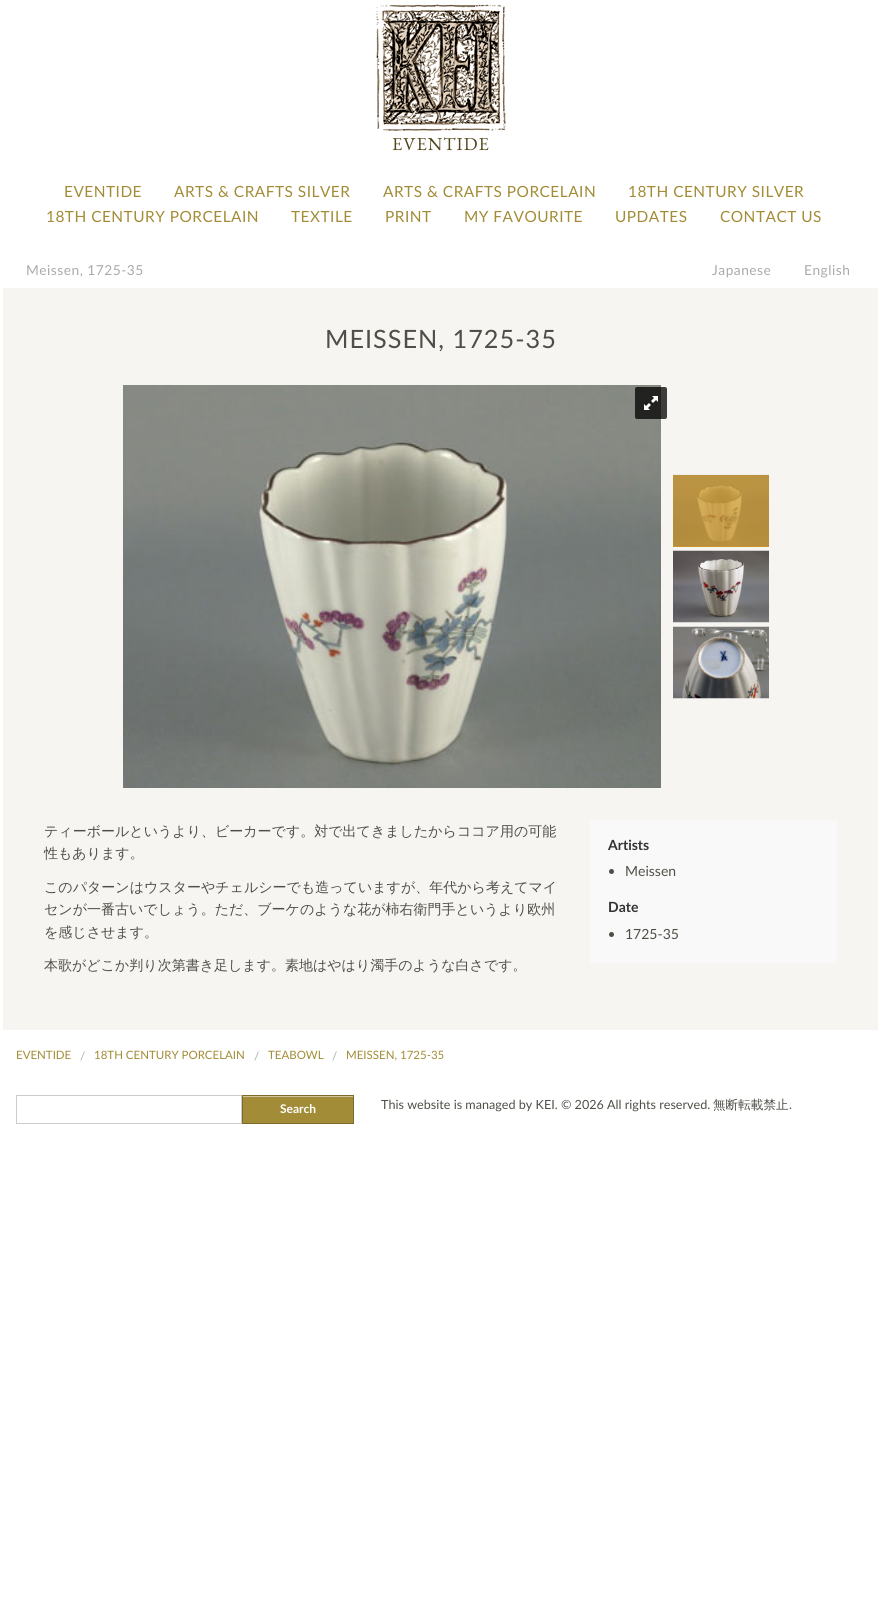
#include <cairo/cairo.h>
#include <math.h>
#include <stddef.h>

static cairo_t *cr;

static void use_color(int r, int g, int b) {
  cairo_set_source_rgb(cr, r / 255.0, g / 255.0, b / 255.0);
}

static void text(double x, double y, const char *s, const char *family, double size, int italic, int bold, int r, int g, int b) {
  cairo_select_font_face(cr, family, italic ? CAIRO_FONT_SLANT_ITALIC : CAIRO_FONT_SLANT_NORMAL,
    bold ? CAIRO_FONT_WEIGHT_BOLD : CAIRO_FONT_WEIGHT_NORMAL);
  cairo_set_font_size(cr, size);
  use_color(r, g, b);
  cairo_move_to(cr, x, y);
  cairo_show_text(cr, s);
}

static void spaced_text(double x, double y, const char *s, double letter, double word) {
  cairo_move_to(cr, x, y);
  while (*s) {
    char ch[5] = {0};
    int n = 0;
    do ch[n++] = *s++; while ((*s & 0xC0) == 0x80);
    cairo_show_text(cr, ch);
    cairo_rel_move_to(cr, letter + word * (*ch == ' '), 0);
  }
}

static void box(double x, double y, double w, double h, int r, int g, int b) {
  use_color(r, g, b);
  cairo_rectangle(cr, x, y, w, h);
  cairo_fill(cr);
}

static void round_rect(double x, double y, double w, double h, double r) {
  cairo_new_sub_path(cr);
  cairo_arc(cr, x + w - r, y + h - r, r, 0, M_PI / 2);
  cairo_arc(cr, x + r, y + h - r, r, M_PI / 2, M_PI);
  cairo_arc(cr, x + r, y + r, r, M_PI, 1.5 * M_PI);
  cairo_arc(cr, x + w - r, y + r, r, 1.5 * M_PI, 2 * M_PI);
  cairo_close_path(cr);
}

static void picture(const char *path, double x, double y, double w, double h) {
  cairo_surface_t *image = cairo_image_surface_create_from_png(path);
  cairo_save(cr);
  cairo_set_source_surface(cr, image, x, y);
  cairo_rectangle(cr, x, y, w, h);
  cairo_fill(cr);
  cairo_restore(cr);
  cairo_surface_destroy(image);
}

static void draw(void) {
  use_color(255, 255, 255);
  cairo_paint(cr);
  picture("img_01.png", 376, 4, 130, 127);
  box(3, 288, 875, 742, 247, 245, 241);
  picture("img_02.png", 123, 385, 538, 403);
  cairo_set_source_rgba(cr, 0, 0, 0, 0.75);
  round_rect(635, 387, 32, 32, 2);
  cairo_fill(cr);
  picture("img_03.png", 644, 396, 14, 14);
  box(673, 475, 96, 72, 209, 152, 38);
  picture("img_04.png", 673, 474, 96, 73);
  picture("img_05.png", 673, 550, 96, 73);
  picture("img_06.png", 673, 626, 96, 73);
  box(590, 820, 247, 143, 249, 249, 249);
  use_color(79, 79, 72);
  cairo_arc(cr, 611.5, 871.5, 2.5, 0, 2 * M_PI);
  cairo_fill(cr);
  cairo_arc(cr, 611.5, 934.5, 2.5, 0, 2 * M_PI);
  cairo_fill(cr);
  cairo_rectangle(cr, 16.5, 1095.5, 225, 28);
  use_color(204, 204, 204);
  cairo_set_line_width(cr, 1);
  cairo_stroke(cr);
  box(243, 1097, 110, 26, 162, 140, 55);
  box(243, 1096, 110, 1, 209, 198, 155);
  cairo_rectangle(cr, 242.5, 1095.5, 111, 28);
  use_color(124, 107, 42);
  cairo_stroke(cr);
  cairo_select_font_face(cr, "EB Garamond", CAIRO_FONT_SLANT_NORMAL, CAIRO_FONT_WEIGHT_NORMAL);
  cairo_set_font_size(cr, 18.25);
  use_color(81, 70, 27);
  spaced_text(392, 150, "EVENTIDE", 1, 0);
  cairo_select_font_face(cr, "Lato", CAIRO_FONT_SLANT_NORMAL, CAIRO_FONT_WEIGHT_NORMAL);
  cairo_set_font_size(cr, 15.4);
  use_color(162, 140, 55);
  spaced_text(64, 197, "EVENTIDE", 0.5, 0);
  spaced_text(174, 197, "ARTS & CRAFTS SILVER", 0.5, 0);
  spaced_text(383, 197, "ARTS & CRAFTS PORCELAIN", 0.5, 0);
  spaced_text(628, 197, "18TH CENTURY SILVER", 0.5, 0);
  spaced_text(46, 222, "18TH CENTURY PORCELAIN", 0.5, 0);
  spaced_text(291, 222, "TEXTILE", 0.5, 0);
  spaced_text(385, 222, "PRINT", 0.5, 0);
  spaced_text(464, 222, "MY FAVOURITE", 0.5, 0);
  spaced_text(615, 222, "UPDATES", 0.5, 0);
  spaced_text(720, 222, "CONTACT US", 0.5, 0);
  cairo_set_font_size(cr, 13.75);
  use_color(170, 170, 170);
  spaced_text(26, 275, "Meissen, 1725-35", 0.5, 0);
  spaced_text(712, 275, "Japanese", 0.5, 0);
  spaced_text(804, 275, "English", 0.5, 0);
  cairo_set_font_size(cr, 25.25);
  use_color(79, 79, 72);
  spaced_text(325, 348, "MEISSEN, 1725-35", 1, 0);
  text(44, 836, "ティーボールというより、ビーカーです。対で出てきましたからココア用の可能", "WenQuanYi Zen Hei Medium", 14, 0, 0, 79, 79, 72);
  text(44, 858, "性もあります。", "WenQuanYi Zen Hei Medium", 14, 0, 0, 79, 79, 72);
  text(44, 892, "このパターンはウスターやチェルシーでも造っていますが、年代から考えてマイ", "WenQuanYi Zen Hei Medium", 14, 0, 0, 79, 79, 72);
  text(44, 914, "センが一番古いでしょう。ただ、ブーケのような花が柿右衛門手というより欧州", "WenQuanYi Zen Hei Medium", 14, 0, 0, 79, 79, 72);
  text(44, 937, "を感じさせます。", "WenQuanYi Zen Hei Medium", 14, 0, 0, 79, 79, 72);
  text(44, 970, "本歌がどこか判り次第書き足します。素地はやはり濁手のような白さです。", "WenQuanYi Zen Hei Medium", 14, 0, 0, 79, 79, 72);
  text(608, 850, "Artists", "Lato", 14, 0, 1, 51, 51, 51);
  text(625, 876, "Meissen", "Lato", 14, 0, 0, 79, 79, 72);
  text(608, 912, "Date", "Lato", 14, 0, 1, 51, 51, 51);
  text(625, 939, "1725-35", "Lato", 14, 0, 0, 79, 79, 72);
  text(16, 1059, "EVENTIDE", "Lato", 11.5, 0, 0, 162, 140, 55);
  text(80, 1060, "/", "Lato", 11.5, 0, 0, 170, 170, 170);
  text(94, 1059, "18TH CENTURY PORCELAIN", "Lato", 11.5, 0, 0, 162, 140, 55);
  text(254, 1060, "/", "Lato", 11.5, 0, 0, 170, 170, 170);
  text(268, 1059, "TEABOWL", "Lato", 11.5, 0, 0, 162, 140, 55);
  text(332, 1060, "/", "Lato", 11.5, 0, 0, 170, 170, 170);
  text(346, 1059, "MEISSEN, 1725-35", "Lato", 11.5, 0, 0, 162, 140, 55);
  text(280, 1113, "Search", "Lato", 12, 0, 1, 255, 255, 255);
  text(381, 1109, "This website is managed by KEI. © 2026 All rights reserved.", "Lato", 12.6, 0, 0, 79, 79, 72);
  text(713, 1109, "無断転載禁止", "WenQuanYi Zen Hei Medium", 12.6, 0, 0, 79, 79, 72);
  text(789, 1109, ".", "Lato", 12.6, 0, 0, 79, 79, 72);
}

int main(void) {
  cairo_surface_t *surface = cairo_image_surface_create(CAIRO_FORMAT_RGB24, 881, 1605);
  cr = cairo_create(surface);
  cairo_font_options_t *options = cairo_font_options_create();
  cairo_font_options_set_hint_metrics(options, CAIRO_HINT_METRICS_OFF);
  cairo_font_options_set_hint_style(options, CAIRO_HINT_STYLE_NONE);
  cairo_set_font_options(cr, options);
  cairo_set_miter_limit(cr, 4);
  draw();
  cairo_surface_write_to_png(surface, "out.png");
  cairo_font_options_destroy(options);
  cairo_destroy(cr);
  cairo_surface_destroy(surface);
  return 0;
}
